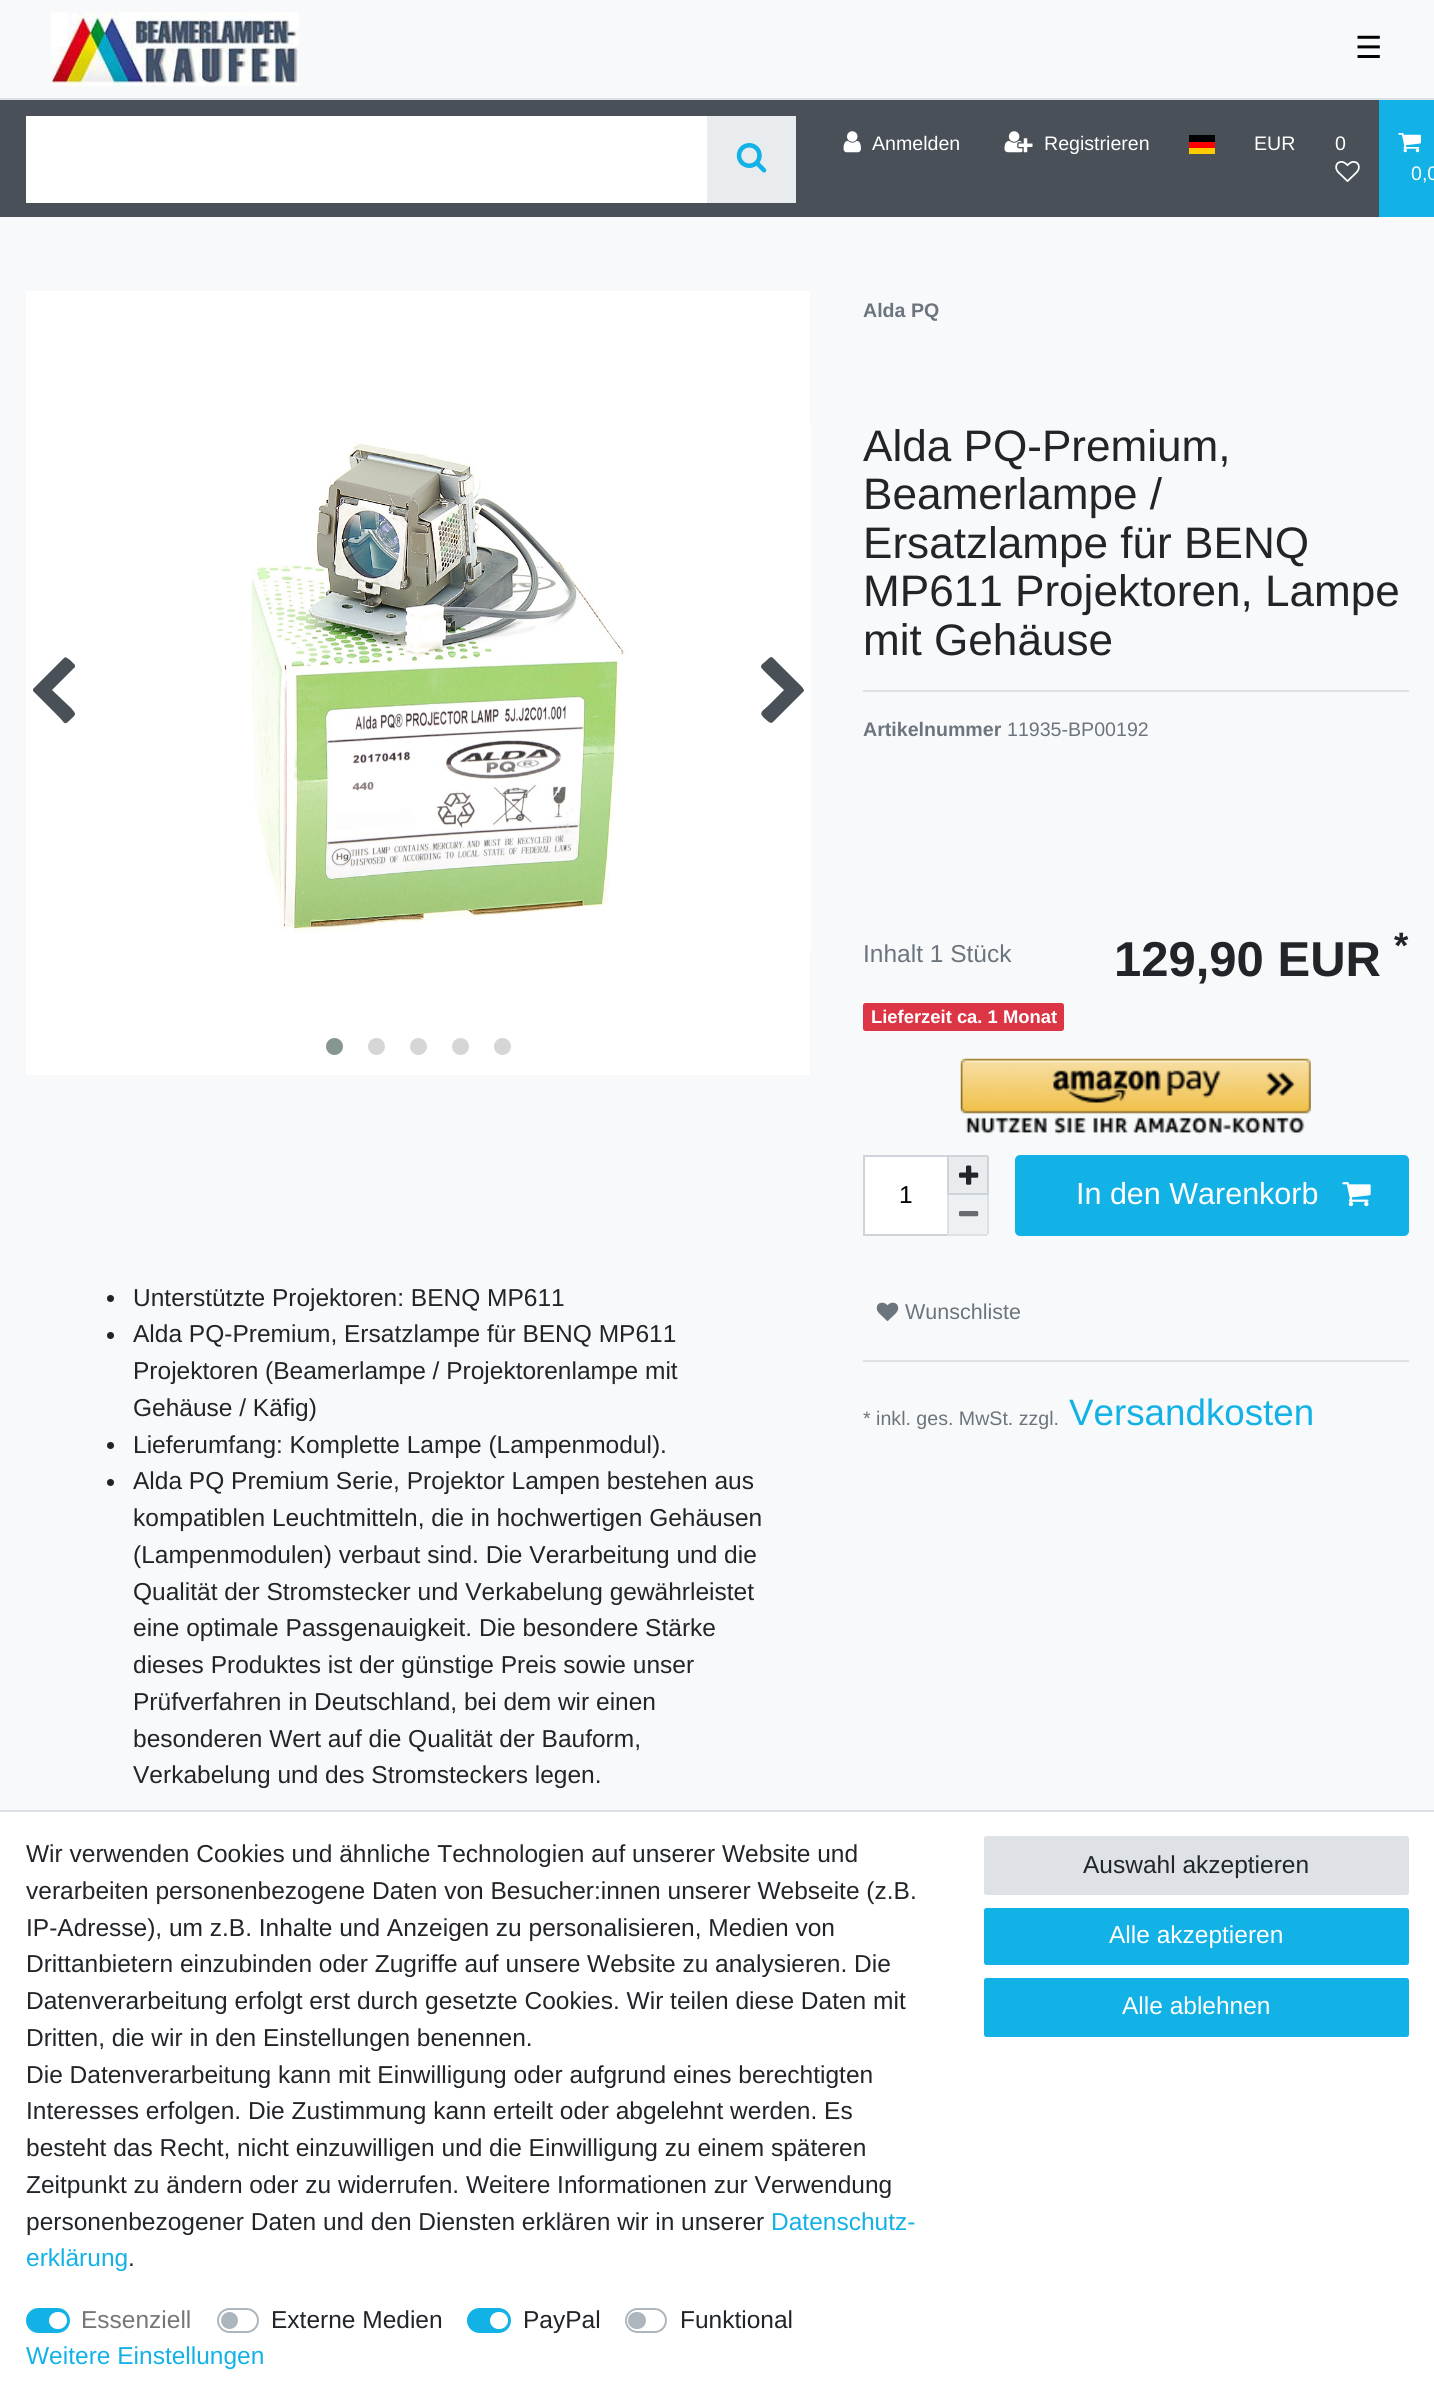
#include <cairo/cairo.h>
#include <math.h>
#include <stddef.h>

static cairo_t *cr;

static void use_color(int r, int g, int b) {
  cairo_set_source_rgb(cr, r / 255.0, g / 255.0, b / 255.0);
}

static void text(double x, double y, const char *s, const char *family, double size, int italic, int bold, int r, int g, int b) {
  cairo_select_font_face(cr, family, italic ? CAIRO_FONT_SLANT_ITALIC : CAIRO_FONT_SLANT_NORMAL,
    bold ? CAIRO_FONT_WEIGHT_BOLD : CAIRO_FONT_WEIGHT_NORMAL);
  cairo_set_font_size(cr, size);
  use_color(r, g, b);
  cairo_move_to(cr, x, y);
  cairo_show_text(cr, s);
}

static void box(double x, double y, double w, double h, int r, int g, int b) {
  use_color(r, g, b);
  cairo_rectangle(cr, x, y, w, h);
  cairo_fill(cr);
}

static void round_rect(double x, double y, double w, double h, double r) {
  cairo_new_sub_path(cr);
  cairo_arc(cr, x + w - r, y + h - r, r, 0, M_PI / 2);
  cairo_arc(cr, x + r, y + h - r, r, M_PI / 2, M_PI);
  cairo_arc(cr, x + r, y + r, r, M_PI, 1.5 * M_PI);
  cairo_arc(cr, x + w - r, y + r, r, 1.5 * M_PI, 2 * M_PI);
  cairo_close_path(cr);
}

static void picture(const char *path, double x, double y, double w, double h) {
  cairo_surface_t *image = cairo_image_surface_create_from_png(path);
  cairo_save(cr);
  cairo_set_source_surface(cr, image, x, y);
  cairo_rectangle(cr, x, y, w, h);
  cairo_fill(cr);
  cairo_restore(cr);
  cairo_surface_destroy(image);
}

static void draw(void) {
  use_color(248, 249, 250);
  cairo_paint(cr);
  box(0, 98, 1434, 2, 222, 226, 230);
  picture("img_01.png", 51, 12, 248, 74);
  box(0, 100, 1379, 117, 73, 80, 87);
  box(26, 116, 681, 87, 255, 255, 255);
  box(707, 116, 89, 87, 233, 236, 239);
  picture("img_02.png", 736, 143, 31, 30);
  picture("img_03.png", 843, 131, 18, 22);
  picture("img_04.png", 1004, 131, 29, 22);
  box(1189, 148, 26, 6, 255, 204, 0);
  box(1189, 135, 26, 7, 0, 0, 0);
  box(1189, 142, 26, 6, 255, 0, 0);
  picture("img_05.png", 1335, 161, 25, 21);
  box(1379, 100, 55, 117, 18, 177, 230);
  picture("img_06.png", 1398, 133, 23, 20);
  box(863, 690, 546, 2, 222, 226, 230);
  use_color(220, 53, 69);
  round_rect(863, 1003, 201, 28, 2.5);
  cairo_fill(cr);
  picture("img_07.png", 960, 1058, 351, 77);
  box(865, 1157, 82, 77, 255, 255, 255);
  box(863, 1155, 84, 2, 206, 212, 218);
  box(863, 1234, 84, 2, 206, 212, 218);
  box(863, 1155, 2, 81, 206, 212, 218);
  use_color(233, 236, 239);
  cairo_new_path(cr);
  cairo_move_to(cr, 948, 1156);
  cairo_line_to(cr, 986.5, 1156);
  cairo_curve_to(cr, 987.5, 1156, 988, 1156.5, 988, 1157.5);
  cairo_line_to(cr, 988, 1194);
  cairo_line_to(cr, 948, 1194);
  cairo_close_path(cr);
  cairo_fill_preserve(cr);
  use_color(206, 212, 218);
  cairo_stroke(cr);
  picture("img_08.png", 959, 1165, 20, 20);
  use_color(238, 241, 243);
  cairo_new_path(cr);
  cairo_move_to(cr, 947, 1195);
  cairo_line_to(cr, 989, 1195);
  cairo_line_to(cr, 989, 1233.5);
  cairo_curve_to(cr, 989, 1235, 988, 1236, 986.5, 1236);
  cairo_line_to(cr, 947, 1236);
  cairo_close_path(cr);
  cairo_fill(cr);
  box(987, 1195, 2, 39, 221, 225, 229);
  box(947, 1234, 40, 2, 221, 225, 229);
  box(947, 1195, 2, 41, 221, 225, 229);
  picture("img_09.png", 959, 1211, 20, 6);
  use_color(18, 177, 230);
  round_rect(1016, 1156, 392, 79, 4);
  cairo_fill_preserve(cr);
  cairo_stroke(cr);
  picture("img_10.png", 1342, 1182, 29, 25);
  picture("img_11.png", 876, 1302, 23, 19);
  box(863, 1360, 546, 2, 222, 226, 230);
  box(26, 291, 784, 784, 255, 255, 255);
  picture("img_12.png", 250, 424, 561, 526);
  use_color(73, 80, 87);
  cairo_new_path(cr);
  cairo_move_to(cr, 74, 668);
  cairo_line_to(cr, 52, 690);
  cairo_line_to(cr, 71, 708);
  cairo_curve_to(cr, 77, 715, 76, 714, 70, 720);
  cairo_curve_to(cr, 64, 726, 65, 723, 59, 717);
  cairo_line_to(cr, 33, 691);
  cairo_line_to(cr, 33, 689);
  cairo_line_to(cr, 64, 658);
  cairo_curve_to(cr, 66, 656, 68, 659, 70, 660);
  cairo_line_to(cr, 75, 665);
  cairo_curve_to(cr, 75, 666, 75, 668, 74, 668);
  cairo_close_path(cr);
  cairo_fill(cr);
  cairo_new_path(cr);
  cairo_move_to(cr, 803, 692);
  cairo_line_to(cr, 773, 722);
  cairo_curve_to(cr, 770, 725, 766, 719, 764, 718);
  cairo_curve_to(cr, 758, 712, 763, 711, 769, 705);
  cairo_line_to(cr, 784, 690);
  cairo_curve_to(cr, 781, 687, 761, 669, 761, 667);
  cairo_curve_to(cr, 761, 664, 764, 663, 766, 661);
  cairo_curve_to(cr, 772, 655, 771, 656, 778, 663);
  cairo_line_to(cr, 798, 683);
  cairo_curve_to(cr, 799, 684, 804, 688, 804, 691);
  cairo_close_path(cr);
  cairo_fill(cr);
  use_color(134, 151, 145);
  cairo_arc(cr, 334.5, 1046.5, 8.5, 0, 2 * M_PI);
  cairo_fill(cr);
  use_color(214, 214, 214);
  cairo_arc(cr, 376.5, 1046.5, 8.5, 0, 2 * M_PI);
  cairo_fill(cr);
  cairo_arc(cr, 418.5, 1046.5, 8.5, 0, 2 * M_PI);
  cairo_fill(cr);
  cairo_arc(cr, 460.5, 1046.5, 8.5, 0, 2 * M_PI);
  cairo_fill(cr);
  cairo_arc(cr, 502.5, 1046.5, 8.5, 0, 2 * M_PI);
  cairo_fill(cr);
  use_color(33, 37, 41);
  cairo_arc(cr, 110.5, 1298.5, 3.5, 0, 2 * M_PI);
  cairo_fill(cr);
  cairo_arc(cr, 110.5, 1335.5, 3.5, 0, 2 * M_PI);
  cairo_fill(cr);
  cairo_arc(cr, 110.5, 1445.5, 3.5, 0, 2 * M_PI);
  cairo_fill(cr);
  cairo_arc(cr, 110.5, 1482.5, 3.5, 0, 2 * M_PI);
  cairo_fill(cr);
  box(0, 1812, 1434, 586, 255, 255, 255);
  box(0, 1810, 1434, 2, 222, 226, 230);
  use_color(18, 177, 230);
  round_rect(27, 2309, 42, 23, 11.5);
  cairo_fill_preserve(cr);
  cairo_stroke(cr);
  use_color(255, 255, 255);
  round_rect(49, 2312, 18, 17, 8.5);
  cairo_fill(cr);
  round_rect(218, 2309, 40, 23, 11.5);
  use_color(173, 181, 189);
  cairo_stroke(cr);
  cairo_arc(cr, 229.5, 2320.5, 8.5, 0, 2 * M_PI);
  cairo_fill(cr);
  use_color(18, 177, 230);
  round_rect(468, 2309, 42, 23, 11.5);
  cairo_fill_preserve(cr);
  cairo_stroke(cr);
  use_color(255, 255, 255);
  round_rect(490, 2312, 18, 17, 8.5);
  cairo_fill(cr);
  round_rect(626, 2309, 40, 23, 11.5);
  use_color(173, 181, 189);
  cairo_stroke(cr);
  round_rect(628, 2312, 18, 17, 8.5);
  cairo_fill(cr);
  use_color(222, 226, 230);
  round_rect(985, 1837, 423, 57, 1.5);
  cairo_fill_preserve(cr);
  cairo_stroke(cr);
  use_color(18, 177, 230);
  round_rect(985, 1909, 423, 55, 1.5);
  cairo_fill_preserve(cr);
  cairo_stroke(cr);
  round_rect(985, 1979, 423, 57, 1.5);
  cairo_fill_preserve(cr);
  cairo_stroke(cr);
  text(1355, 58, "☰", "DejaVu Sans", 30.5, 0, 0, 0, 0, 0);
  text(872, 150, "Anmelden", "Liberation Sans", 19.6, 0, 0, 255, 255, 255);
  text(1044, 150, "Registrieren", "Liberation Sans", 19.6, 0, 0, 255, 255, 255);
  text(1254, 150, "EUR", "Liberation Sans", 19.6, 0, 0, 255, 255, 255);
  text(1335, 150, "0", "Liberation Sans", 19.6, 0, 0, 255, 255, 255);
  text(1411, 180, "0,0", "Liberation Sans", 19.6, 0, 0, 255, 255, 255);
  text(863, 317, "Alda PQ", "Liberation Sans", 19.6, 0, 1, 108, 117, 125);
  text(863, 461, "Alda PQ-Premium,", "Liberation Sans", 44.1, 0, 0, 33, 37, 41);
  text(863, 509, "Beamerlampe /", "Liberation Sans", 44.1, 0, 0, 33, 37, 41);
  text(863, 558, "Ersatzlampe für BENQ", "Liberation Sans", 44.1, 0, 0, 33, 37, 41);
  text(863, 606, "MP611 Projektoren, Lampe", "Liberation Sans", 44.1, 0, 0, 33, 37, 41);
  text(863, 655, "mit Gehäuse", "Liberation Sans", 44.1, 0, 0, 33, 37, 41);
  text(863, 736, "Artikelnummer", "Liberation Sans", 19.6, 0, 1, 108, 117, 125);
  text(1007, 736, "11935-BP00192", "Liberation Sans", 19.6, 0, 0, 108, 117, 125);
  text(863, 962, "Inhalt 1 Stück", "Liberation Sans", 24.5, 0, 0, 108, 117, 125);
  text(1394, 958, "*", "Liberation Sans", 36.75, 0, 1, 33, 37, 41);
  text(1114, 976, "129,90 EUR", "Liberation Sans", 49, 0, 1, 33, 37, 41);
  text(871, 1023, "Lieferzeit ca. 1 Monat", "Liberation Sans", 18.4, 0, 1, 255, 255, 255);
  text(899, 1203, "1", "Liberation Sans", 24.5, 0, 0, 0, 0, 0);
  text(1076, 1204, "In den Warenkorb", "Liberation Sans", 30.5, 0, 0, 255, 255, 255);
  text(905, 1319, "Wunschliste", "Liberation Sans", 21.5, 0, 0, 108, 117, 125);
  text(863, 1425, "* inkl. ges. MwSt. zzgl.", "Liberation Sans", 19.6, 0, 0, 108, 117, 125);
  text(1069, 1425, "Versandkosten", "Liberation Sans", 36.75, 0, 0, 18, 177, 230);
  text(133, 1306, "Unterstützte Projektoren: BENQ MP611", "Liberation Sans", 24.5, 0, 0, 33, 37, 41);
  text(133, 1342, "Alda PQ-Premium, Ersatzlampe für BENQ MP611", "Liberation Sans", 24.5, 0, 0, 33, 37, 41);
  text(133, 1379, "Projektoren (Beamerlampe / Projektorenlampe mit", "Liberation Sans", 24.5, 0, 0, 33, 37, 41);
  text(133, 1416, "Gehäuse / Käfig)", "Liberation Sans", 24.5, 0, 0, 33, 37, 41);
  text(133, 1453, "Lieferumfang: Komplette Lampe (Lampenmodul).", "Liberation Sans", 24.5, 0, 0, 33, 37, 41);
  text(133, 1489, "Alda PQ Premium Serie, Projektor Lampen bestehen aus", "Liberation Sans", 24.5, 0, 0, 33, 37, 41);
  text(133, 1526, "kompatiblen Leuchtmitteln, die in hochwertigen Gehäusen", "Liberation Sans", 24.5, 0, 0, 33, 37, 41);
  text(133, 1563, "(Lampenmodulen) verbaut sind. Die Verarbeitung und die", "Liberation Sans", 24.5, 0, 0, 33, 37, 41);
  text(133, 1600, "Qualität der Stromstecker und Verkabelung gewährleistet", "Liberation Sans", 24.5, 0, 0, 33, 37, 41);
  text(133, 1636, "eine optimale Passgenauigkeit. Die besondere Stärke", "Liberation Sans", 24.5, 0, 0, 33, 37, 41);
  text(133, 1673, "dieses Produktes ist der günstige Preis sowie unser", "Liberation Sans", 24.5, 0, 0, 33, 37, 41);
  text(133, 1710, "Prüfverfahren in Deutschland, bei dem wir einen", "Liberation Sans", 24.5, 0, 0, 33, 37, 41);
  text(133, 1747, "besonderen Wert auf die Qualität der Bauform,", "Liberation Sans", 24.5, 0, 0, 33, 37, 41);
  text(133, 1783, "Verkabelung und des Stromsteckers legen.", "Liberation Sans", 24.5, 0, 0, 33, 37, 41);
  text(26, 1862, "Wir verwenden Cookies und ähnliche Technologien auf unserer Website und", "Liberation Sans", 24.5, 0, 0, 33, 37, 41);
  text(26, 1899, "verarbeiten personenbezogene Daten von Besucher:innen unserer Webseite (z.B.", "Liberation Sans", 24.5, 0, 0, 33, 37, 41);
  text(26, 1936, "IP-Adresse), um z.B. Inhalte und Anzeigen zu personalisieren, Medien von", "Liberation Sans", 24.5, 0, 0, 33, 37, 41);
  text(26, 1972, "Drittanbietern einzubinden oder Zugriffe auf unsere Website zu analysieren. Die", "Liberation Sans", 24.5, 0, 0, 33, 37, 41);
  text(26, 2009, "Datenverarbeitung erfolgt erst durch gesetzte Cookies. Wir teilen diese Daten mit", "Liberation Sans", 24.5, 0, 0, 33, 37, 41);
  text(26, 2046, "Dritten, die wir in den Einstellungen benennen.", "Liberation Sans", 24.5, 0, 0, 33, 37, 41);
  text(26, 2083, "Die Datenverarbeitung kann mit Einwilligung oder aufgrund eines berechtigten", "Liberation Sans", 24.5, 0, 0, 33, 37, 41);
  text(26, 2119, "Interesses erfolgen. Die Zustimmung kann erteilt oder abgelehnt werden. Es", "Liberation Sans", 24.5, 0, 0, 33, 37, 41);
  text(26, 2156, "besteht das Recht, nicht einzuwilligen und die Einwilligung zu einem späteren", "Liberation Sans", 24.5, 0, 0, 33, 37, 41);
  text(26, 2193, "Zeitpunkt zu ändern oder zu widerrufen. Weitere Informationen zur Verwendung", "Liberation Sans", 24.5, 0, 0, 33, 37, 41);
  text(26, 2230, "personenbezogener Daten und den Diensten erklären wir in unserer", "Liberation Sans", 24.5, 0, 0, 33, 37, 41);
  text(771, 2230, "Datenschutz-", "Liberation Sans", 24.5, 0, 0, 18, 177, 230);
  text(26, 2266, "erklärung", "Liberation Sans", 24.5, 0, 0, 18, 177, 230);
  text(128, 2266, ".", "Liberation Sans", 24.5, 0, 0, 33, 37, 41);
  text(81, 2328, "Essenziell", "Liberation Sans", 24.5, 0, 0, 118, 118, 118);
  text(271, 2328, "Externe Medien", "Liberation Sans", 24.5, 0, 0, 33, 37, 41);
  text(523, 2328, "PayPal", "Liberation Sans", 24.5, 0, 0, 33, 37, 41);
  text(680, 2328, "Funktional", "Liberation Sans", 24.5, 0, 0, 33, 37, 41);
  text(26, 2364, "Weitere Einstellungen", "Liberation Sans", 24.5, 0, 0, 18, 177, 230);
  text(1083, 1873, "Auswahl akzeptieren", "Liberation Sans", 24.5, 0, 0, 33, 37, 41);
  text(1109, 1943, "Alle akzeptieren", "Liberation Sans", 24.5, 0, 0, 255, 255, 255);
  text(1122, 2014, "Alle ablehnen", "Liberation Sans", 24.5, 0, 0, 255, 255, 255);
}

int main(void) {
  cairo_surface_t *surface = cairo_image_surface_create(CAIRO_FORMAT_RGB24, 1434, 2398);
  cr = cairo_create(surface);
  cairo_font_options_t *options = cairo_font_options_create();
  cairo_font_options_set_hint_metrics(options, CAIRO_HINT_METRICS_OFF);
  cairo_font_options_set_hint_style(options, CAIRO_HINT_STYLE_NONE);
  cairo_set_font_options(cr, options);
  cairo_set_miter_limit(cr, 4);
  draw();
  cairo_surface_write_to_png(surface, "out.png");
  cairo_font_options_destroy(options);
  cairo_destroy(cr);
  cairo_surface_destroy(surface);
  return 0;
}
